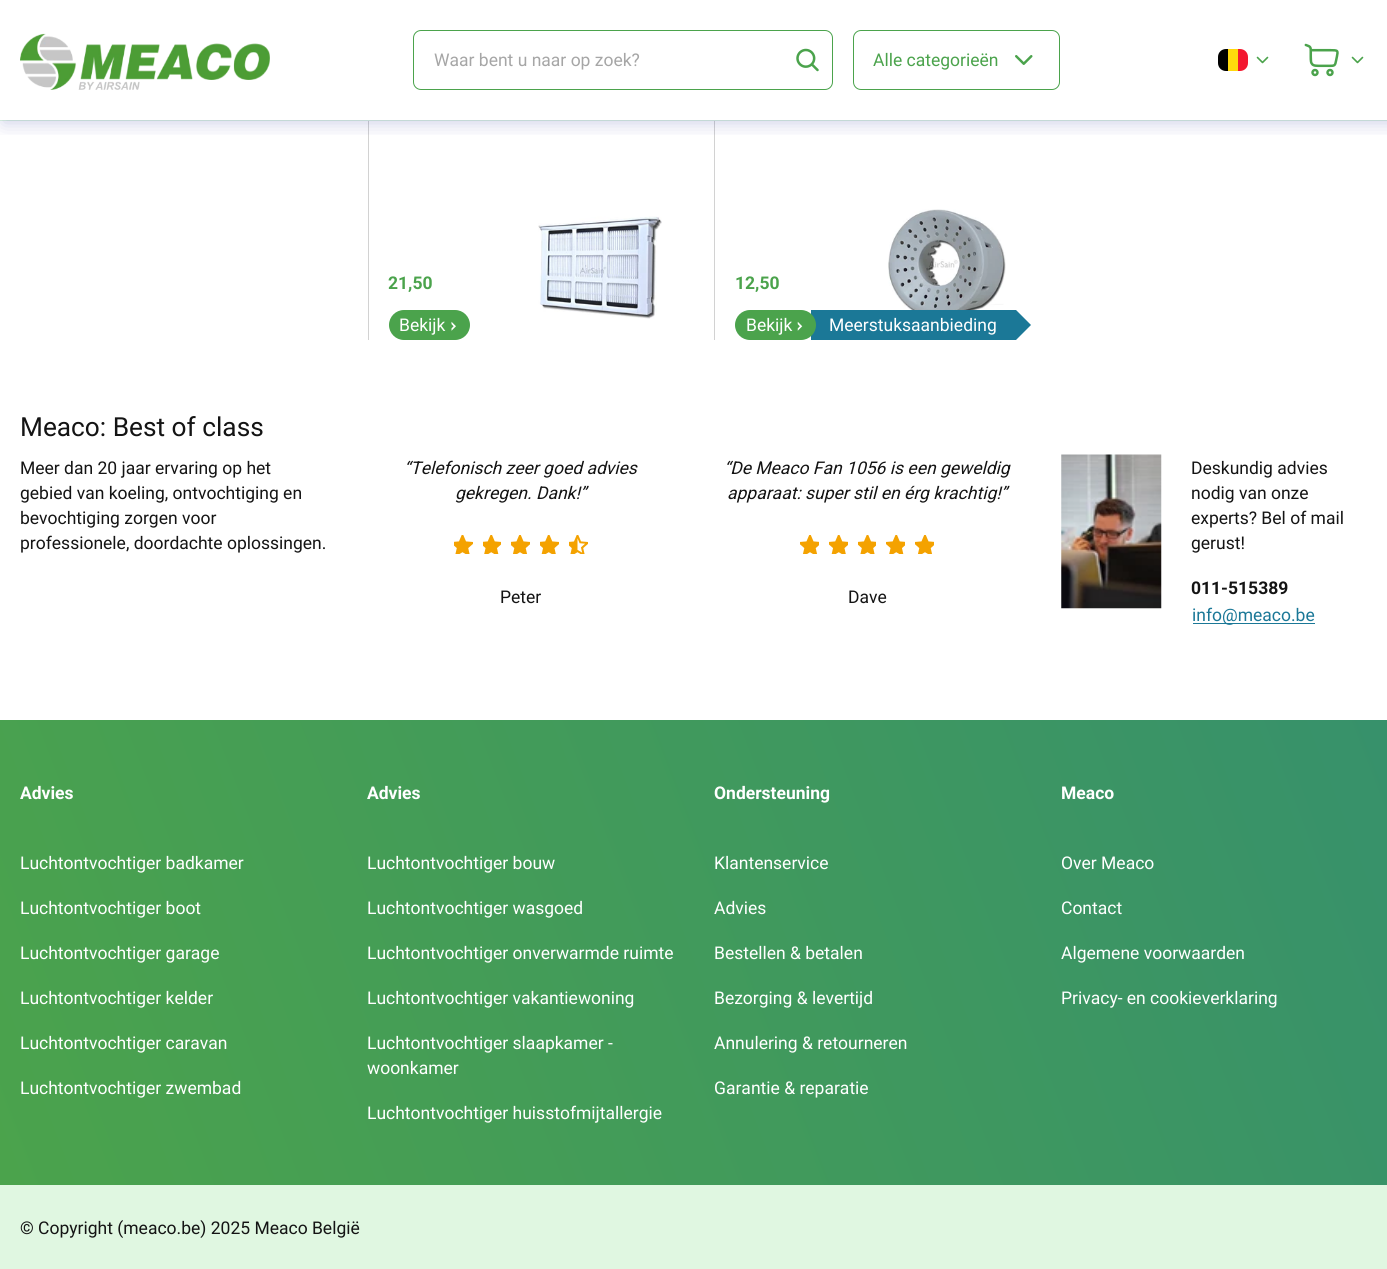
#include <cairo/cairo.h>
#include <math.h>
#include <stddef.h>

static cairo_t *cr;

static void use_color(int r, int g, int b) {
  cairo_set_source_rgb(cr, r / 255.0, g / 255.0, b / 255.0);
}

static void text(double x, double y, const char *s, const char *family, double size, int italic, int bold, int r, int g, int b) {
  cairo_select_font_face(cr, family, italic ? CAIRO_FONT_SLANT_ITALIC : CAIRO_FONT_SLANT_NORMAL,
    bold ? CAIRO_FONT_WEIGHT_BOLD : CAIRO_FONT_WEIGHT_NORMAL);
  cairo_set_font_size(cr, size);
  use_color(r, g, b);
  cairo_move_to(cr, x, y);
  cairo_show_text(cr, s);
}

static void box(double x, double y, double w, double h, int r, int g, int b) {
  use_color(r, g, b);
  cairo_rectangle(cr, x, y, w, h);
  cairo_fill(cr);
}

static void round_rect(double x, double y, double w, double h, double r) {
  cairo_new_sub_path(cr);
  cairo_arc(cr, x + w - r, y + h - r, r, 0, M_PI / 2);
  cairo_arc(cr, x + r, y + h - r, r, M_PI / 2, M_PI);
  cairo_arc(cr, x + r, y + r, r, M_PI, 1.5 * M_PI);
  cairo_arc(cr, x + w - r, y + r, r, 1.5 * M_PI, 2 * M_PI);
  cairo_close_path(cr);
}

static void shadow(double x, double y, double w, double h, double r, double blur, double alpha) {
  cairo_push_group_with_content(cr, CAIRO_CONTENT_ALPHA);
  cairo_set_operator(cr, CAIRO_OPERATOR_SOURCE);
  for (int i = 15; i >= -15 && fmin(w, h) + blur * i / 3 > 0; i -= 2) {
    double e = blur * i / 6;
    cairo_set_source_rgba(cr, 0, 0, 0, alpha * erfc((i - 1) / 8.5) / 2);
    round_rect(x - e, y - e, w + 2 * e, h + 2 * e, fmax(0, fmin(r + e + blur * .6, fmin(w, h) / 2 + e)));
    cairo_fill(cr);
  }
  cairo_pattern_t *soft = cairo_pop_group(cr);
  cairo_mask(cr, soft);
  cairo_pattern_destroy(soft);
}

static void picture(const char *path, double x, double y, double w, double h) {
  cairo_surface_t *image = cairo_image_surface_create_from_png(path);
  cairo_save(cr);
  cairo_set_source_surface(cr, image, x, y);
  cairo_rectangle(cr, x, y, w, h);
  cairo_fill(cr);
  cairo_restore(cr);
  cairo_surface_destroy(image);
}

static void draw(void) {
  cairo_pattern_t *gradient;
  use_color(255, 255, 255);
  cairo_paint(cr);
  box(0, 120, 1387, 1, 224, 247, 225);
  box(368, 121, 1, 219, 210, 210, 210);
  box(714, 121, 1, 219, 210, 210, 210);
  cairo_save(cr);
  cairo_rectangle(cr, 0, 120, 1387, 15);
  cairo_clip(cr);
  use_color(0, 10, 135);
  shadow(3, 3, 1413, 120, 0, 9.5, 0.2);
  cairo_restore(cr);
  picture("img_01.png", 20, 33, 250, 57);
  round_rect(413.5, 30.5, 419, 59, 7.5);
  use_color(75, 163, 76);
  cairo_set_line_width(cr, 1);
  cairo_stroke(cr);
  picture("img_02.png", 796, 48, 23, 24);
  round_rect(853.5, 30.5, 206, 59, 7.5);
  cairo_stroke(cr);
  picture("img_03.png", 1015, 55, 18, 10);
  use_color(0, 0, 0);
  cairo_new_path(cr);
  cairo_move_to(cr, 1226, 49);
  cairo_line_to(cr, 1228, 49);
  cairo_line_to(cr, 1228, 71);
  cairo_line_to(cr, 1226, 71);
  cairo_curve_to(cr, 1221.5, 71, 1218, 67.5, 1218, 63);
  cairo_line_to(cr, 1218, 57);
  cairo_curve_to(cr, 1218, 52.5, 1221.5, 49, 1226, 49);
  cairo_close_path(cr);
  cairo_fill(cr);
  box(1228, 49, 10, 22, 255, 217, 12);
  use_color(243, 24, 48);
  cairo_new_path(cr);
  cairo_move_to(cr, 1238, 49);
  cairo_line_to(cr, 1240, 49);
  cairo_curve_to(cr, 1244.5, 49, 1248, 52.5, 1248, 57);
  cairo_line_to(cr, 1248, 63);
  cairo_curve_to(cr, 1248, 67.5, 1244.5, 71, 1240, 71);
  cairo_line_to(cr, 1238, 71);
  cairo_close_path(cr);
  cairo_fill(cr);
  picture("img_04.png", 1256, 56, 13, 8);
  picture("img_05.png", 1304, 43, 35, 34);
  picture("img_04.png", 1351, 56, 13, 8);
  use_color(75, 163, 76);
  round_rect(389, 310, 81, 30, 15);
  cairo_fill(cr);
  picture("img_06.png", 451, 321, 5, 10);
  picture("img_07.png", 538, 216, 124, 103);
  picture("img_08.png", 888, 209, 118, 101);
  box(811, 310, 205, 30, 27, 120, 151);
  use_color(75, 163, 76);
  round_rect(735, 310, 81, 30, 15);
  cairo_fill(cr);
  picture("img_09.png", 797, 321, 6, 10);
  use_color(27, 120, 151);
  cairo_new_path(cr);
  cairo_move_to(cr, 1016, 340);
  cairo_line_to(cr, 1016, 310);
  cairo_line_to(cr, 1031, 325);
  cairo_close_path(cr);
  cairo_fill(cr);
  picture("img_10.png", 454, 535, 19, 19);
  picture("img_11.png", 483, 535, 18, 19);
  picture("img_12.png", 511, 535, 19, 19);
  picture("img_13.png", 540, 535, 19, 19);
  picture("img_14.png", 569, 535, 19, 19);
  picture("img_15.png", 800, 535, 19, 19);
  picture("img_16.png", 829, 535, 19, 19);
  picture("img_17.png", 858, 535, 18, 19);
  picture("img_18.png", 886, 535, 19, 19);
  picture("img_15.png", 915, 535, 19, 19);
  picture("img_19.png", 1061, 454, 101, 155);
  box(1193, 623, 122, 1, 27, 120, 151);
  gradient = cairo_pattern_create_linear(11, 1214, 1376, 691);
  cairo_pattern_add_color_stop_rgba(gradient, 0, 0.294, 0.639, 0.298, 1);
  cairo_pattern_add_color_stop_rgba(gradient, 1, 0.216, 0.569, 0.42, 1);
  cairo_set_source(cr, gradient);
  cairo_pattern_destroy(gradient);
  cairo_rectangle(cr, 0, 720, 1387, 465);
  cairo_fill(cr);
  box(0, 1185, 1387, 84, 224, 247, 225);
  text(434, 66, "Waar bent u naar op zoek?", "Roboto", 17.5, 0, 0, 166, 166, 166);
  text(873, 66, "Alle categorieën", "Roboto", 17.5, 0, 0, 75, 163, 76);
  text(388, 289, "21,50", "Roboto", 17.5, 0, 1, 75, 163, 76);
  text(399, 331, "Bekijk", "Roboto", 17.5, 0, 0, 255, 255, 255);
  text(735, 289, "12,50", "Roboto", 17.5, 0, 1, 75, 163, 76);
  text(746, 331, "Bekijk", "Roboto", 17.5, 0, 0, 255, 255, 255);
  text(829, 331, "Meerstuksaanbieding", "Roboto", 17.5, 0, 0, 255, 255, 255);
  text(20, 436, "Meaco: Best of class", "Roboto", 26.25, 0, 0, 20, 20, 20);
  text(20, 474, "Meer dan 20 jaar ervaring op het", "Roboto", 17.5, 0, 0, 20, 20, 20);
  text(20, 499, "gebied van koeling, ontvochtiging en", "Roboto", 17.5, 0, 0, 20, 20, 20);
  text(20, 524, "bevochtiging zorgen voor", "Roboto", 17.5, 0, 0, 20, 20, 20);
  text(20, 549, "professionele, doordachte oplossingen.", "Roboto", 17.5, 0, 0, 20, 20, 20);
  text(404, 474, "“Telefonisch zeer goed advies", "Roboto", 17.5, 1, 0, 20, 20, 20);
  text(455, 499, "gekregen. Dank!”", "Roboto", 17.5, 1, 0, 20, 20, 20);
  text(500, 603, "Peter", "Roboto", 17.5, 0, 0, 20, 20, 20);
  text(724, 474, "“De Meaco Fan 1056 is een geweldig", "Roboto", 17.5, 1, 0, 20, 20, 20);
  text(727, 499, "apparaat: super stil en érg krachtig!”", "Roboto", 17.5, 1, 0, 20, 20, 20);
  text(848, 603, "Dave", "Roboto", 17.5, 0, 0, 20, 20, 20);
  text(1191, 474, "Deskundig advies", "Roboto", 17.5, 0, 0, 20, 20, 20);
  text(1191, 499, "nodig van onze", "Roboto", 17.5, 0, 0, 20, 20, 20);
  text(1191, 524, "experts? Bel of mail", "Roboto", 17.5, 0, 0, 20, 20, 20);
  text(1191, 549, "gerust!", "Roboto", 17.5, 0, 0, 20, 20, 20);
  text(1191, 594, "011-515389", "Roboto", 17.5, 0, 1, 20, 20, 20);
  text(1192, 621, "info@meaco.be", "Roboto", 17.5, 0, 0, 27, 120, 151);
  text(20, 799, "Advies", "Roboto", 17.5, 0, 1, 255, 255, 255);
  text(20, 869, "Luchtontvochtiger badkamer", "Roboto", 17.5, 0, 0, 255, 255, 255);
  text(20, 914, "Luchtontvochtiger boot", "Roboto", 17.5, 0, 0, 255, 255, 255);
  text(20, 959, "Luchtontvochtiger garage", "Roboto", 17.5, 0, 0, 255, 255, 255);
  text(20, 1004, "Luchtontvochtiger kelder", "Roboto", 17.5, 0, 0, 255, 255, 255);
  text(20, 1049, "Luchtontvochtiger caravan", "Roboto", 17.5, 0, 0, 255, 255, 255);
  text(20, 1094, "Luchtontvochtiger zwembad", "Roboto", 17.5, 0, 0, 255, 255, 255);
  text(367, 799, "Advies", "Roboto", 17.5, 0, 1, 255, 255, 255);
  text(367, 869, "Luchtontvochtiger bouw", "Roboto", 17.5, 0, 0, 255, 255, 255);
  text(367, 914, "Luchtontvochtiger wasgoed", "Roboto", 17.5, 0, 0, 255, 255, 255);
  text(367, 959, "Luchtontvochtiger onverwarmde ruimte", "Roboto", 17.5, 0, 0, 255, 255, 255);
  text(367, 1004, "Luchtontvochtiger vakantiewoning", "Roboto", 17.5, 0, 0, 255, 255, 255);
  text(367, 1049, "Luchtontvochtiger slaapkamer -", "Roboto", 17.5, 0, 0, 255, 255, 255);
  text(367, 1074, "woonkamer", "Roboto", 17.5, 0, 0, 255, 255, 255);
  text(367, 1119, "Luchtontvochtiger huisstofmijtallergie", "Roboto", 17.5, 0, 0, 255, 255, 255);
  text(714, 799, "Ondersteuning", "Roboto", 17.5, 0, 1, 255, 255, 255);
  text(714, 869, "Klantenservice", "Roboto", 17.5, 0, 0, 255, 255, 255);
  text(714, 914, "Advies", "Roboto", 17.5, 0, 0, 255, 255, 255);
  text(714, 959, "Bestellen & betalen", "Roboto", 17.5, 0, 0, 255, 255, 255);
  text(714, 1004, "Bezorging & levertijd", "Roboto", 17.5, 0, 0, 255, 255, 255);
  text(714, 1049, "Annulering & retourneren", "Roboto", 17.5, 0, 0, 255, 255, 255);
  text(714, 1094, "Garantie & reparatie", "Roboto", 17.5, 0, 0, 255, 255, 255);
  text(1061, 799, "Meaco", "Roboto", 17.5, 0, 1, 255, 255, 255);
  text(1061, 869, "Over Meaco", "Roboto", 17.5, 0, 0, 255, 255, 255);
  text(1061, 914, "Contact", "Roboto", 17.5, 0, 0, 255, 255, 255);
  text(1061, 959, "Algemene voorwaarden", "Roboto", 17.5, 0, 0, 255, 255, 255);
  text(1061, 1004, "Privacy- en cookieverklaring", "Roboto", 17.5, 0, 0, 255, 255, 255);
  text(20, 1234, "© Copyright (meaco.be) 2025 Meaco België", "Roboto", 17.5, 0, 0, 20, 20, 20);
}

int main(void) {
  cairo_surface_t *surface = cairo_image_surface_create(CAIRO_FORMAT_RGB24, 1387, 1269);
  cr = cairo_create(surface);
  cairo_font_options_t *options = cairo_font_options_create();
  cairo_font_options_set_hint_metrics(options, CAIRO_HINT_METRICS_OFF);
  cairo_font_options_set_hint_style(options, CAIRO_HINT_STYLE_NONE);
  cairo_set_font_options(cr, options);
  cairo_set_miter_limit(cr, 4);
  draw();
  cairo_surface_write_to_png(surface, "out.png");
  cairo_font_options_destroy(options);
  cairo_destroy(cr);
  cairo_surface_destroy(surface);
  return 0;
}
